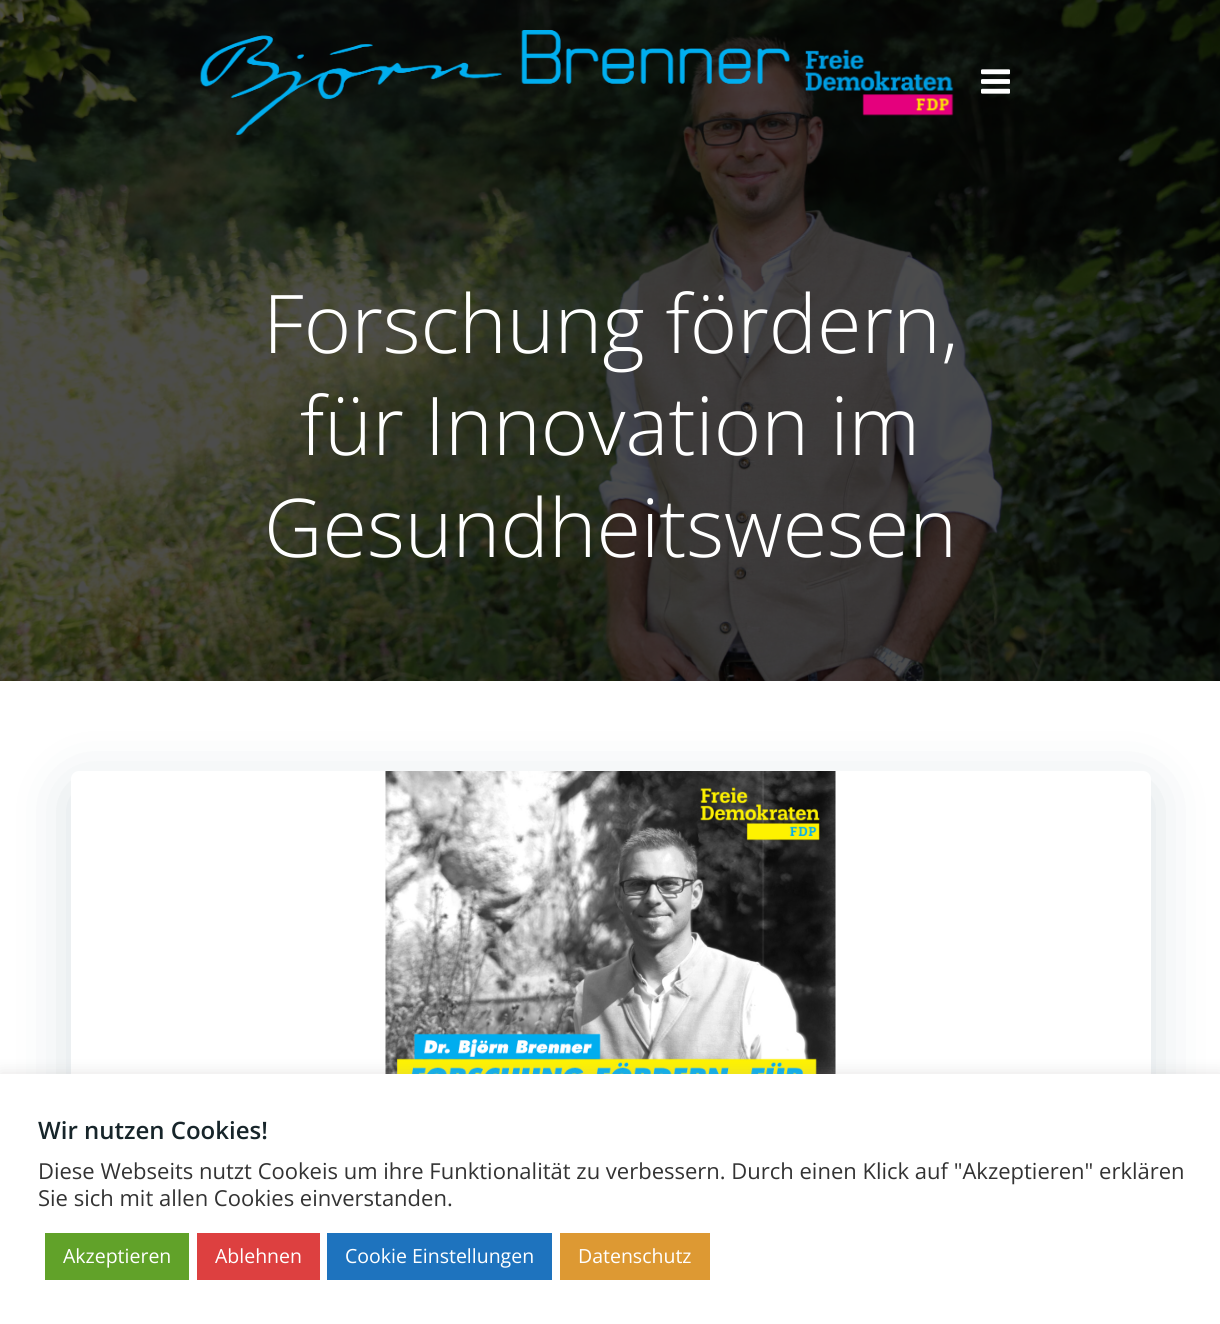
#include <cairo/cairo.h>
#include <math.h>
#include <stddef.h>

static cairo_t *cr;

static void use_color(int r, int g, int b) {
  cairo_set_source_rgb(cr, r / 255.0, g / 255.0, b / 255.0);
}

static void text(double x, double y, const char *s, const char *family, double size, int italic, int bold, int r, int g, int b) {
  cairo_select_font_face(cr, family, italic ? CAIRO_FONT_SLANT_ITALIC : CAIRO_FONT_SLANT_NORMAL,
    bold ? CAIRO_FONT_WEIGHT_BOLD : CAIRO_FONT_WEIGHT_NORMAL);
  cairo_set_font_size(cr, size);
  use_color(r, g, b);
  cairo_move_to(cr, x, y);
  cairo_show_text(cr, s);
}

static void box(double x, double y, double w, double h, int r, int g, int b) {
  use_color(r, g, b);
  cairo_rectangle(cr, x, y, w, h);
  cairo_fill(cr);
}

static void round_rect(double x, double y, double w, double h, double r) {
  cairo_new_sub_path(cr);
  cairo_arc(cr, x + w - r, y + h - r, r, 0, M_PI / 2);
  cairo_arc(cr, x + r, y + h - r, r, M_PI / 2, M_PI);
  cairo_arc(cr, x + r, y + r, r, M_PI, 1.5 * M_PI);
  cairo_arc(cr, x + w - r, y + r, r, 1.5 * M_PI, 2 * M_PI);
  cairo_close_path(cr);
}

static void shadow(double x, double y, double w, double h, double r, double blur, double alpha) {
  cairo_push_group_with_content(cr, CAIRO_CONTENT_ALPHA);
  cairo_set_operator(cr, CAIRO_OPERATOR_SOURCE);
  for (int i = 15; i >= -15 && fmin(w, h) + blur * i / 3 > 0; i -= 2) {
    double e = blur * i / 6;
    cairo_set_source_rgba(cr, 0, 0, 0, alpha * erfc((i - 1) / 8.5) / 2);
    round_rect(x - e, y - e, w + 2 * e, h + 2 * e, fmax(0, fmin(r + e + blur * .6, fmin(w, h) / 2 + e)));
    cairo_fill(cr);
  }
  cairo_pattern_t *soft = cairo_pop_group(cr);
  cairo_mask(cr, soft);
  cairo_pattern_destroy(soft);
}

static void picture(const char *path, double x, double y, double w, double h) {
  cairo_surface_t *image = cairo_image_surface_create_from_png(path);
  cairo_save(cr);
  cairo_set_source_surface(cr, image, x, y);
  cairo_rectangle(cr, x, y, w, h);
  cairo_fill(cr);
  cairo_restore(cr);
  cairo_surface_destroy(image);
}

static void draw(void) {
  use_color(255, 255, 255);
  cairo_paint(cr);
  picture("img_05.png", 0, 0, 1220, 681);
  picture("img_01.png", 200, 30, 590, 105);
  picture("img_02.png", 200, 30, 590, 105);
  picture("img_03.png", 805, 49, 149, 67);
  cairo_set_source_rgba(cr, 0, 0, 0, 0.1);
  cairo_arc(cr, 994.5, 82.5, 25.5, 0, 2 * M_PI);
  cairo_fill(cr);
  picture("img_04.png", 981, 69, 29, 25);
  use_color(1, 51, 74);
  shadow(71, 786, 1080, 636, 8, 30, 0.15);
  use_color(255, 255, 255);
  round_rect(71, 771, 1080, 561, 8);
  cairo_fill(cr);
  picture("img_06.png", 385, 771, 451, 303);
  use_color(172, 171, 171);
  shadow(0, 1073, 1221, 250, 0, 7.5, 0.3);
  box(0, 1074, 1220, 250, 255, 255, 255);
  box(45, 1233, 144, 47, 97, 162, 41);
  box(197, 1233, 123, 47, 221, 64, 64);
  box(327, 1233, 225, 47, 30, 115, 190);
  box(560, 1233, 150, 47, 221, 153, 51);
  text(263, 353, "Forschung fördern,", "Open Sans Light", 81, 0, 0, 255, 255, 255);
  text(300, 455, "für Innovation im", "Open Sans Light", 81, 0, 0, 255, 255, 255);
  text(264, 557, "Gesundheitswesen", "Open Sans Light", 81, 0, 0, 255, 255, 255);
  text(38, 1139, "Wir nutzen Cookies!", "Open Sans SemiBold", 24, 0, 0, 23, 37, 42);
  text(38, 1179, "Diese Webseits nutzt Cookeis um ihre Funktionalität zu verbessern. Durch einen Klick auf \"Akzeptieren\" erklären", "Open Sans", 22, 0, 0, 51, 51, 51);
  text(38, 1206, "Sie sich mit allen Cookies einverstanden.", "Open Sans", 22, 0, 0, 51, 51, 51);
  text(63, 1263, "Akzeptieren", "Open Sans", 19.5, 0, 0, 255, 255, 255);
  text(215, 1263, "Ablehnen", "Open Sans", 19.5, 0, 0, 255, 255, 255);
  text(345, 1263, "Cookie Einstellungen", "Open Sans", 19.5, 0, 0, 255, 255, 255);
  text(578, 1263, "Datenschutz", "Open Sans", 19.5, 0, 0, 255, 255, 255);
}

int main(void) {
  cairo_surface_t *surface = cairo_image_surface_create(CAIRO_FORMAT_RGB24, 1220, 1324);
  cr = cairo_create(surface);
  cairo_font_options_t *options = cairo_font_options_create();
  cairo_font_options_set_hint_metrics(options, CAIRO_HINT_METRICS_OFF);
  cairo_font_options_set_hint_style(options, CAIRO_HINT_STYLE_NONE);
  cairo_set_font_options(cr, options);
  cairo_set_miter_limit(cr, 4);
  draw();
  cairo_surface_write_to_png(surface, "out.png");
  cairo_font_options_destroy(options);
  cairo_destroy(cr);
  cairo_surface_destroy(surface);
  return 0;
}
